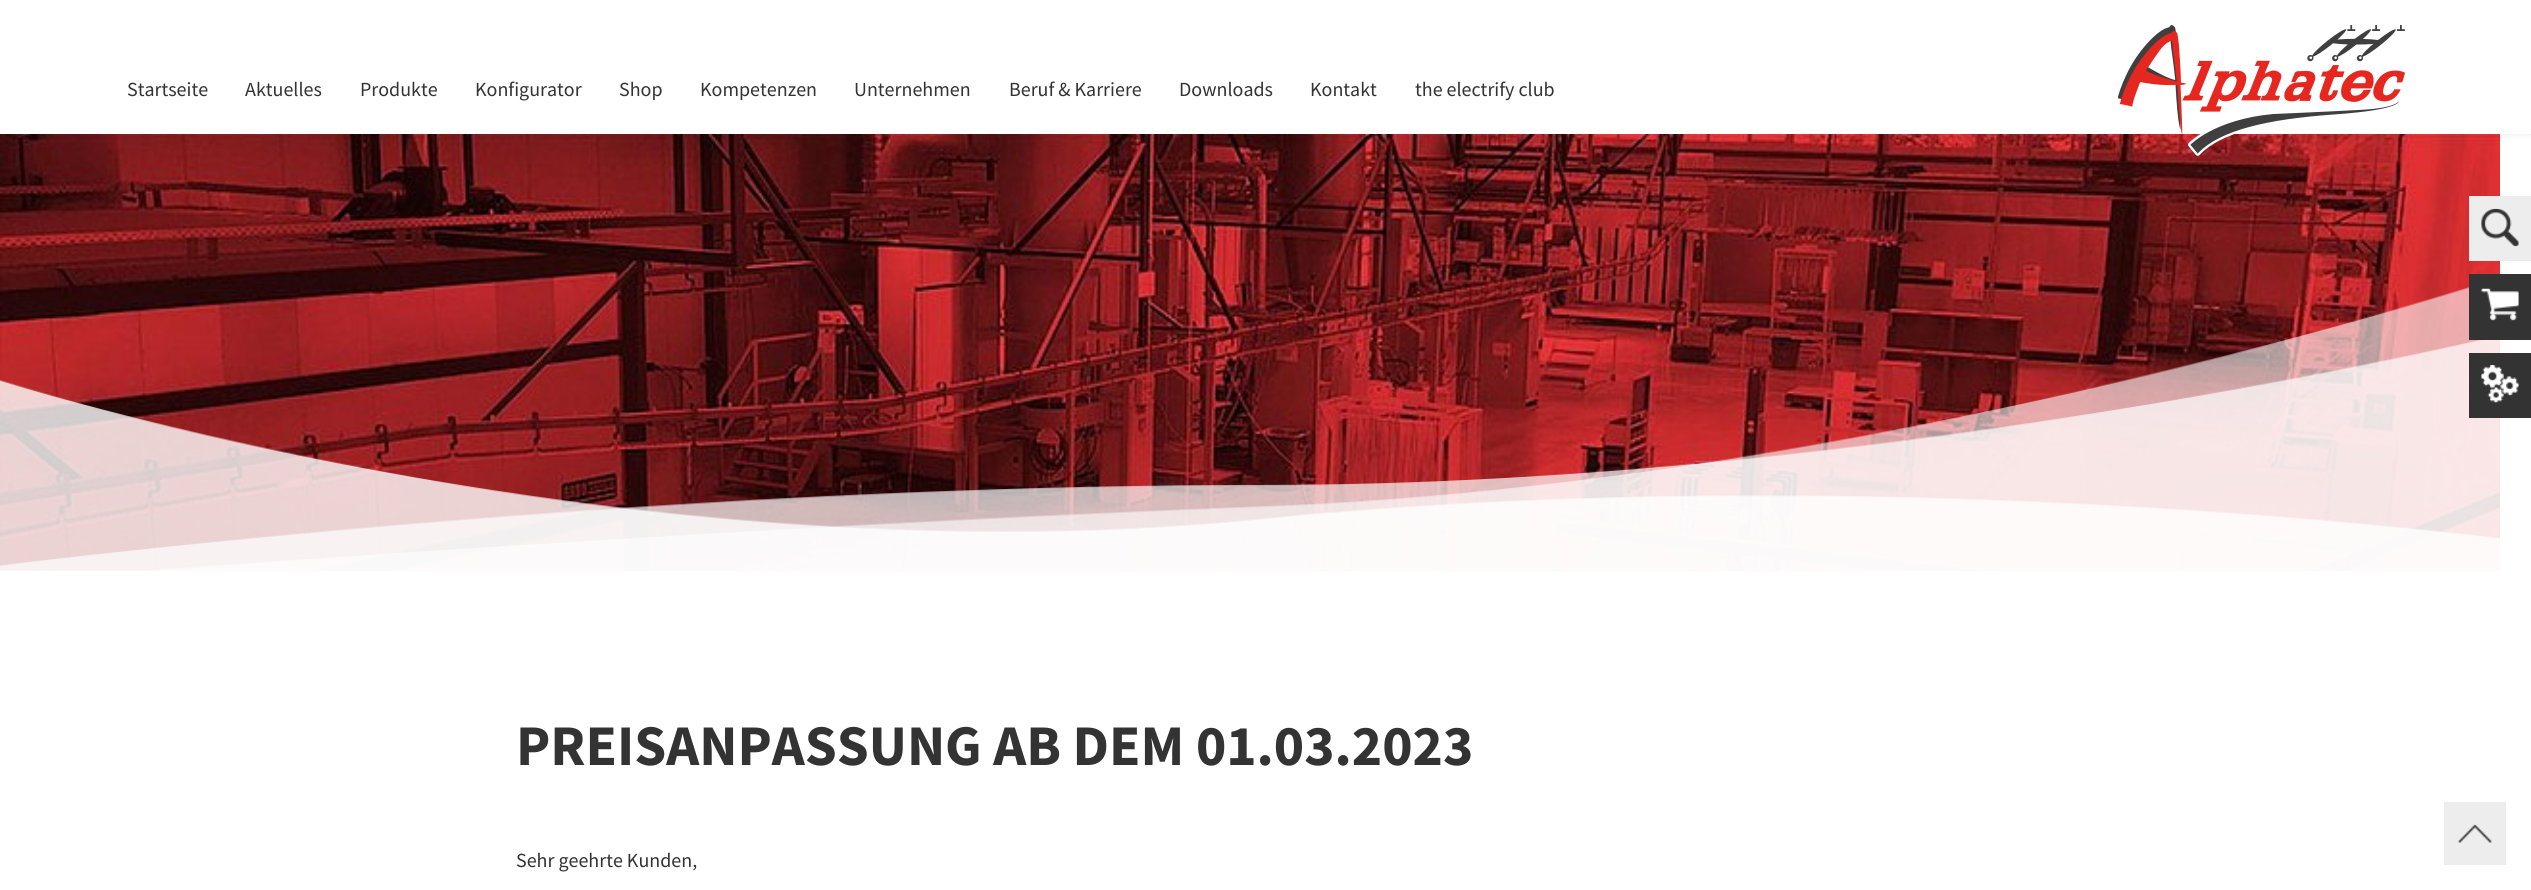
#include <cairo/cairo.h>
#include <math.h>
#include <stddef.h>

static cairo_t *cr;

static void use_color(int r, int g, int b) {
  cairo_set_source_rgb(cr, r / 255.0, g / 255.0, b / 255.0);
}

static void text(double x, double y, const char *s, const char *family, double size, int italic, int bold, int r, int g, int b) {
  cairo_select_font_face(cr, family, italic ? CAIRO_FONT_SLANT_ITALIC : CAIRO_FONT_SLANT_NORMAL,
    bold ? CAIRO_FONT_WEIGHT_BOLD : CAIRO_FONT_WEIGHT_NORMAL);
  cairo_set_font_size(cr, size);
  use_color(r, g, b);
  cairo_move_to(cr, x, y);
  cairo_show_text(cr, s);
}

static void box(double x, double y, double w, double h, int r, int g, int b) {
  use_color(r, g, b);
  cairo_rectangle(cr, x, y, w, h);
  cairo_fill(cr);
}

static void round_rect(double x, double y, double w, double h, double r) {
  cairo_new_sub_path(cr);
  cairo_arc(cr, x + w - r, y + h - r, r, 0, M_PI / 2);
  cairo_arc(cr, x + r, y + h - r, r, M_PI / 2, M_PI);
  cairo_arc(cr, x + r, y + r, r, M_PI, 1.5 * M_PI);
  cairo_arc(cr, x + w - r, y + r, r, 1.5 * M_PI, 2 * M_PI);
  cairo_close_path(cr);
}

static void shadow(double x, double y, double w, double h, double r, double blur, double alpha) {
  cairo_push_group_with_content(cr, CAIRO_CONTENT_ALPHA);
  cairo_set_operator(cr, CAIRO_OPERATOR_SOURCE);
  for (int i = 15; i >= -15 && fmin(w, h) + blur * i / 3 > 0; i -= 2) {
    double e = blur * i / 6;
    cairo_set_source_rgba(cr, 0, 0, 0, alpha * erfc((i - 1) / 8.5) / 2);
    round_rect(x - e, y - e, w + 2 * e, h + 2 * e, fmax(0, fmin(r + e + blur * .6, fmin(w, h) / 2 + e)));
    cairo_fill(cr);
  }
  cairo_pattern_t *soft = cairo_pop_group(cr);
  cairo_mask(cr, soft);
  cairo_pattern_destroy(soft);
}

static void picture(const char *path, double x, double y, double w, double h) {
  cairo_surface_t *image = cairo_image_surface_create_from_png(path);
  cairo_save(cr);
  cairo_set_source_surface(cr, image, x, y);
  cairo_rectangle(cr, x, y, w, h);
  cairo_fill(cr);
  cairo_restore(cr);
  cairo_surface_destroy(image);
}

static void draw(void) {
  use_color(255, 255, 255);
  cairo_paint(cr);
  picture("img_02.png", 0, 134, 2500, 437);
  use_color(0, 0, 0);
  shadow(0, 0, 2531, 134, 0, 3, 0.1);
  box(0, 0, 2531, 134, 255, 255, 255);
  picture("img_01.png", 2118, 25, 287, 131);
  box(2469, 196, 62, 65, 237, 237, 237);
  picture("img_03.png", 2481, 208, 38, 39);
  picture("img_06.png", 0, 287, 2500, 284);
  box(2469, 274, 62, 66, 51, 51, 51);
  picture("img_04.png", 2481, 288, 38, 33);
  box(2469, 353, 62, 65, 51, 51, 51);
  picture("img_05.png", 2481, 365, 38, 38);
  box(2444, 802, 62, 63, 237, 237, 237);
  picture("img_07.png", 2458, 824, 34, 19);
  text(127, 96, "Startseite", "Source Sans Pro", 20, 0, 0, 51, 51, 51);
  text(245, 96, "Aktuelles", "Source Sans Pro", 20, 0, 0, 51, 51, 51);
  text(360, 96, "Produkte", "Source Sans Pro", 20, 0, 0, 51, 51, 51);
  text(475, 96, "Konfigurator", "Source Sans Pro", 20, 0, 0, 51, 51, 51);
  text(619, 96, "Shop", "Source Sans Pro", 20, 0, 0, 51, 51, 51);
  text(700, 96, "Kompetenzen", "Source Sans Pro", 20, 0, 0, 51, 51, 51);
  text(854, 96, "Unternehmen", "Source Sans Pro", 20, 0, 0, 51, 51, 51);
  text(1009, 96, "Beruf & Karriere", "Source Sans Pro", 20, 0, 0, 51, 51, 51);
  text(1179, 96, "Downloads", "Source Sans Pro", 20, 0, 0, 51, 51, 51);
  text(1310, 96, "Kontakt", "Source Sans Pro", 20, 0, 0, 51, 51, 51);
  text(1415, 96, "the electrify club", "Source Sans Pro", 20, 0, 0, 51, 51, 51);
  text(516, 765, "PREISANPASSUNG AB DEM 01.03.2023", "Source Sans Pro", 57.5, 0, 1, 51, 51, 51);
  text(516, 867, "Sehr geehrte Kunden,", "Source Sans Pro", 20, 0, 0, 51, 51, 51);
}

int main(void) {
  cairo_surface_t *surface = cairo_image_surface_create(CAIRO_FORMAT_RGB24, 2531, 890);
  cr = cairo_create(surface);
  cairo_font_options_t *options = cairo_font_options_create();
  cairo_font_options_set_hint_metrics(options, CAIRO_HINT_METRICS_OFF);
  cairo_font_options_set_hint_style(options, CAIRO_HINT_STYLE_NONE);
  cairo_set_font_options(cr, options);
  cairo_set_miter_limit(cr, 4);
  draw();
  cairo_surface_write_to_png(surface, "out.png");
  cairo_font_options_destroy(options);
  cairo_destroy(cr);
  cairo_surface_destroy(surface);
  return 0;
}
